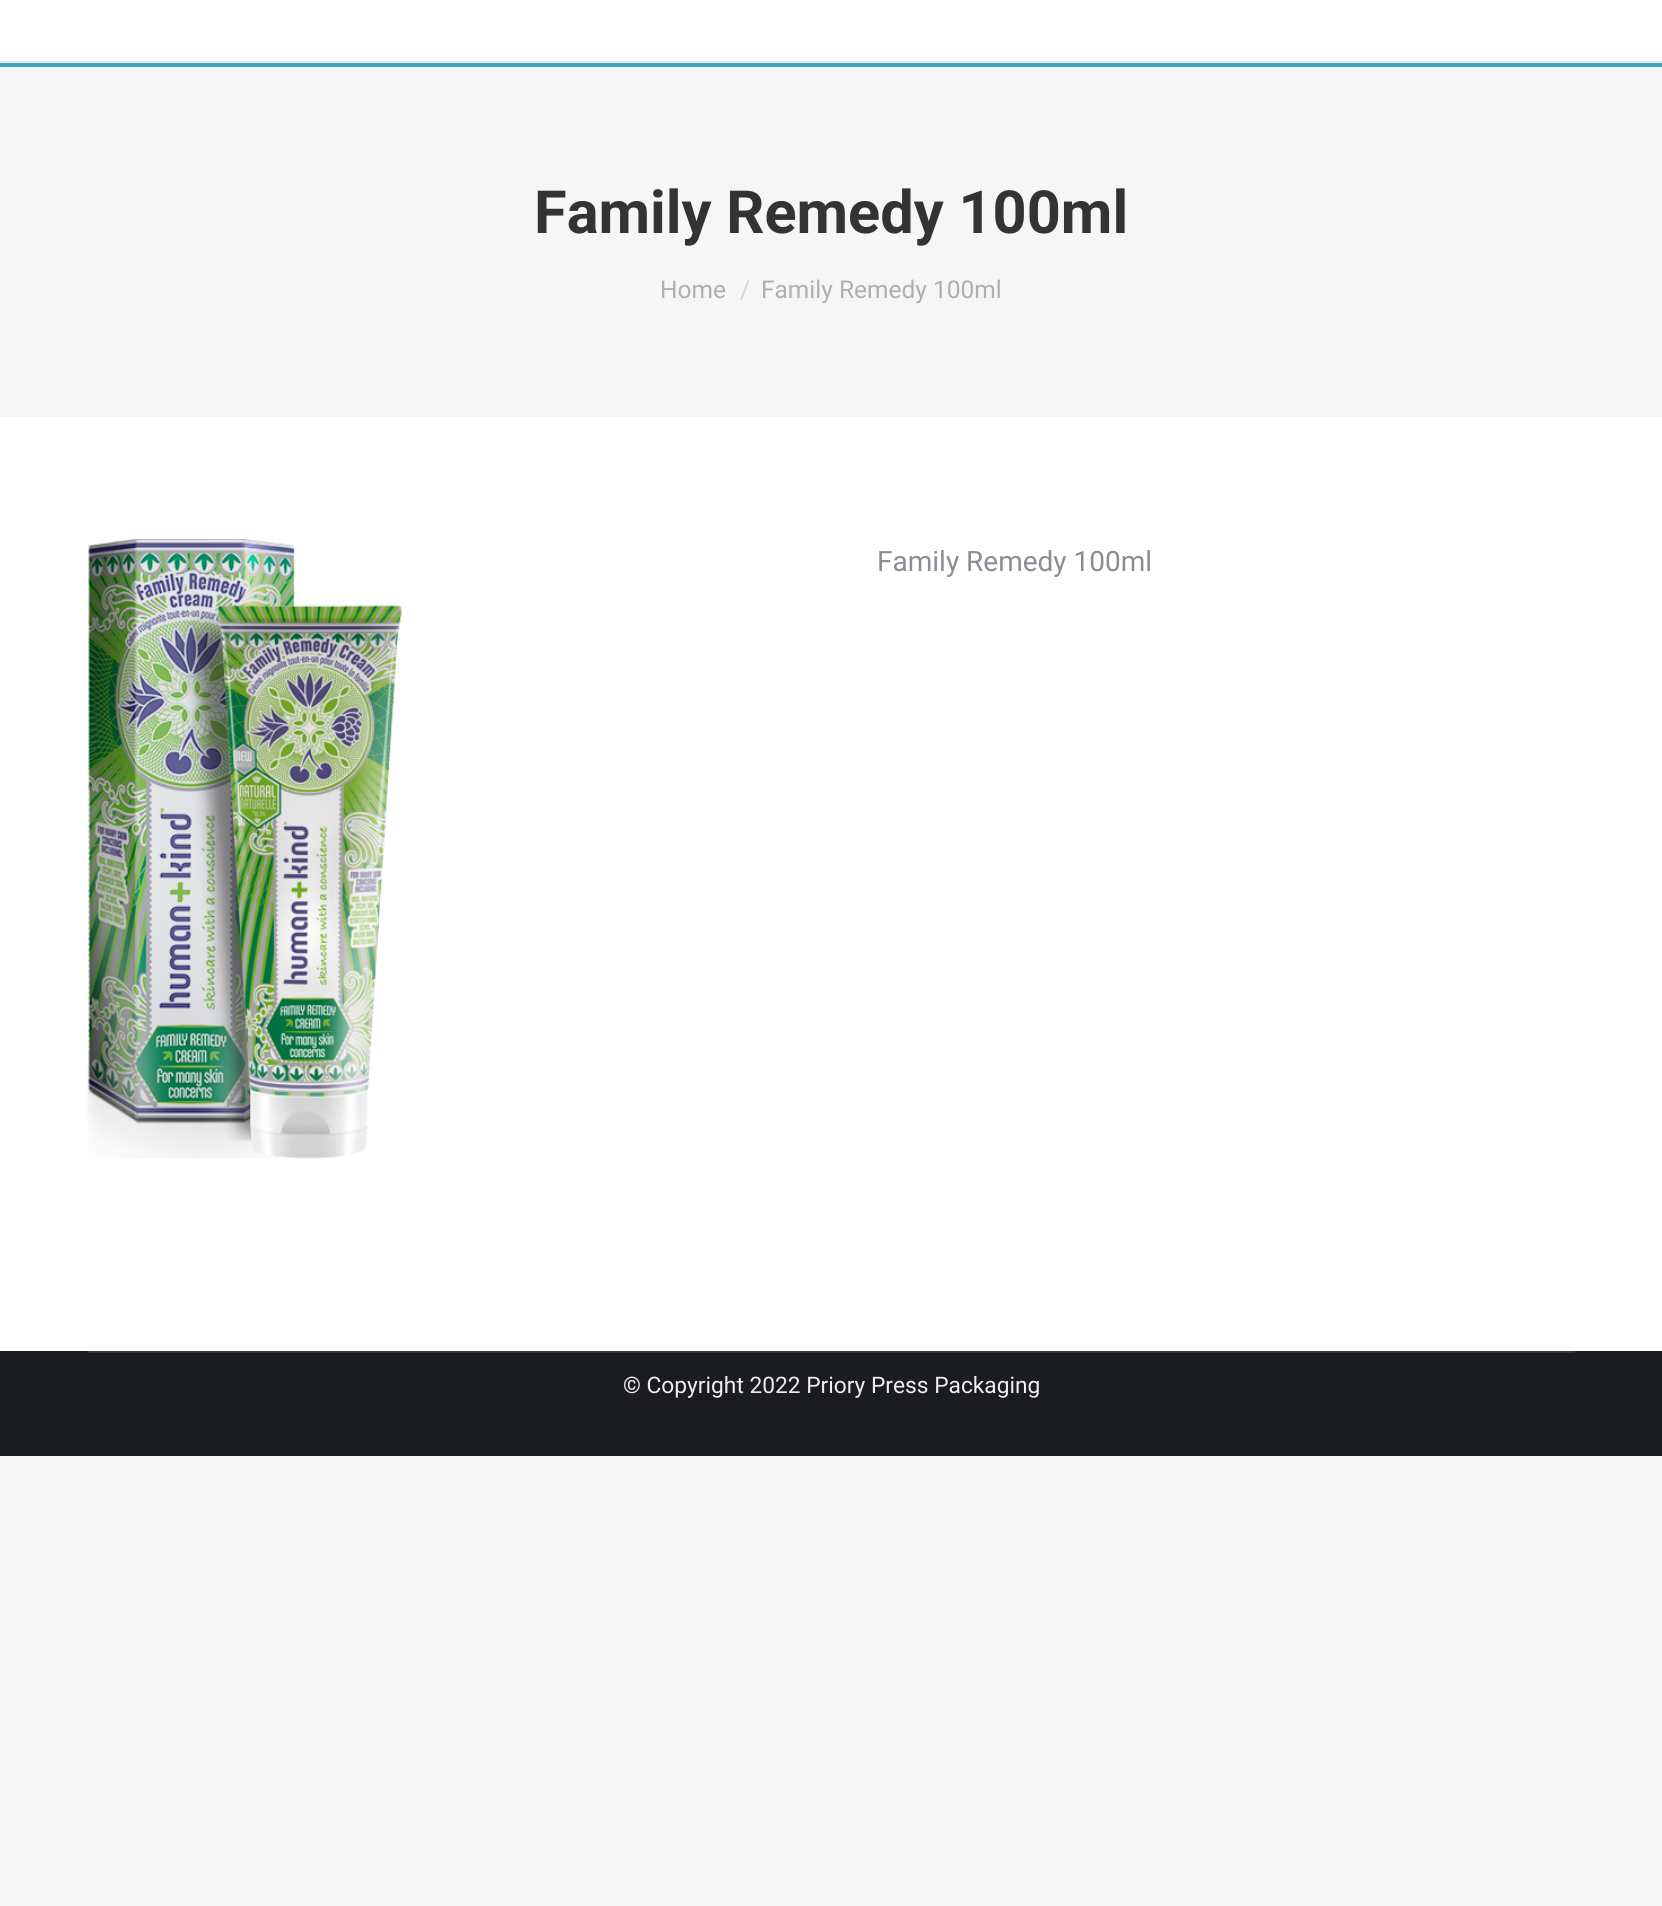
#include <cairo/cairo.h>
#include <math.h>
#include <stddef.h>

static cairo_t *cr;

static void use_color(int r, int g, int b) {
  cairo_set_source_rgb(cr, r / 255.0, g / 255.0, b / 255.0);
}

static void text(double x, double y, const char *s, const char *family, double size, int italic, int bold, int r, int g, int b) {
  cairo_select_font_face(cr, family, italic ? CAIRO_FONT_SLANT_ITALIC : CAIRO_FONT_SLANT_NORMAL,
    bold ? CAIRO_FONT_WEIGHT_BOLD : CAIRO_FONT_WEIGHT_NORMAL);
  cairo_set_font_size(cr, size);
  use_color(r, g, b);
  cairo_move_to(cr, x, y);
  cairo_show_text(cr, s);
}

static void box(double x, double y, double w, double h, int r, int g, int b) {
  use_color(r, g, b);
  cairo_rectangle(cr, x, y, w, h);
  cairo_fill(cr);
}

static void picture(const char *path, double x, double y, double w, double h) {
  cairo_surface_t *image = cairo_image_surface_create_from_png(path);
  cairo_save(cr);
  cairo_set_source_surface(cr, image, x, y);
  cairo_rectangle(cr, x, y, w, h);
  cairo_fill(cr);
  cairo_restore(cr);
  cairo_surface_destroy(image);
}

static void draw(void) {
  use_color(247, 247, 247);
  cairo_paint(cr);
  box(0, 0, 1662, 1351, 255, 255, 255);
  box(0, 63, 1662, 4, 60, 167, 186);
  box(0, 61, 1662, 2, 233, 233, 233);
  box(0, 67, 1662, 350, 246, 246, 246);
  picture("img_01.png", 87, 539, 315, 620);
  box(0, 1351, 1662, 105, 26, 28, 32);
  box(88, 1351, 1487, 2, 53, 55, 59);
  text(534, 233, "Family Remedy 100ml", "Roboto", 59.5, 0, 1, 51, 51, 51);
  text(660, 298, "Home", "Roboto", 24.5, 0, 0, 173, 175, 179);
  text(740, 298, "/", "Roboto", 24.5, 0, 0, 210, 211, 213);
  text(761, 298, "Family Remedy 100ml", "Roboto", 24.5, 0, 0, 173, 175, 179);
  text(877, 571, "Family Remedy 100ml", "Roboto", 28, 0, 0, 139, 141, 148);
  text(623, 1393, "© Copyright 2022 Priory Press Packaging", "Roboto", 22.75, 0, 0, 238, 238, 238);
}

int main(void) {
  cairo_surface_t *surface = cairo_image_surface_create(CAIRO_FORMAT_RGB24, 1662, 1906);
  cr = cairo_create(surface);
  cairo_font_options_t *options = cairo_font_options_create();
  cairo_font_options_set_hint_metrics(options, CAIRO_HINT_METRICS_OFF);
  cairo_font_options_set_hint_style(options, CAIRO_HINT_STYLE_NONE);
  cairo_set_font_options(cr, options);
  cairo_set_miter_limit(cr, 4);
  draw();
  cairo_surface_write_to_png(surface, "out.png");
  cairo_font_options_destroy(options);
  cairo_destroy(cr);
  cairo_surface_destroy(surface);
  return 0;
}
